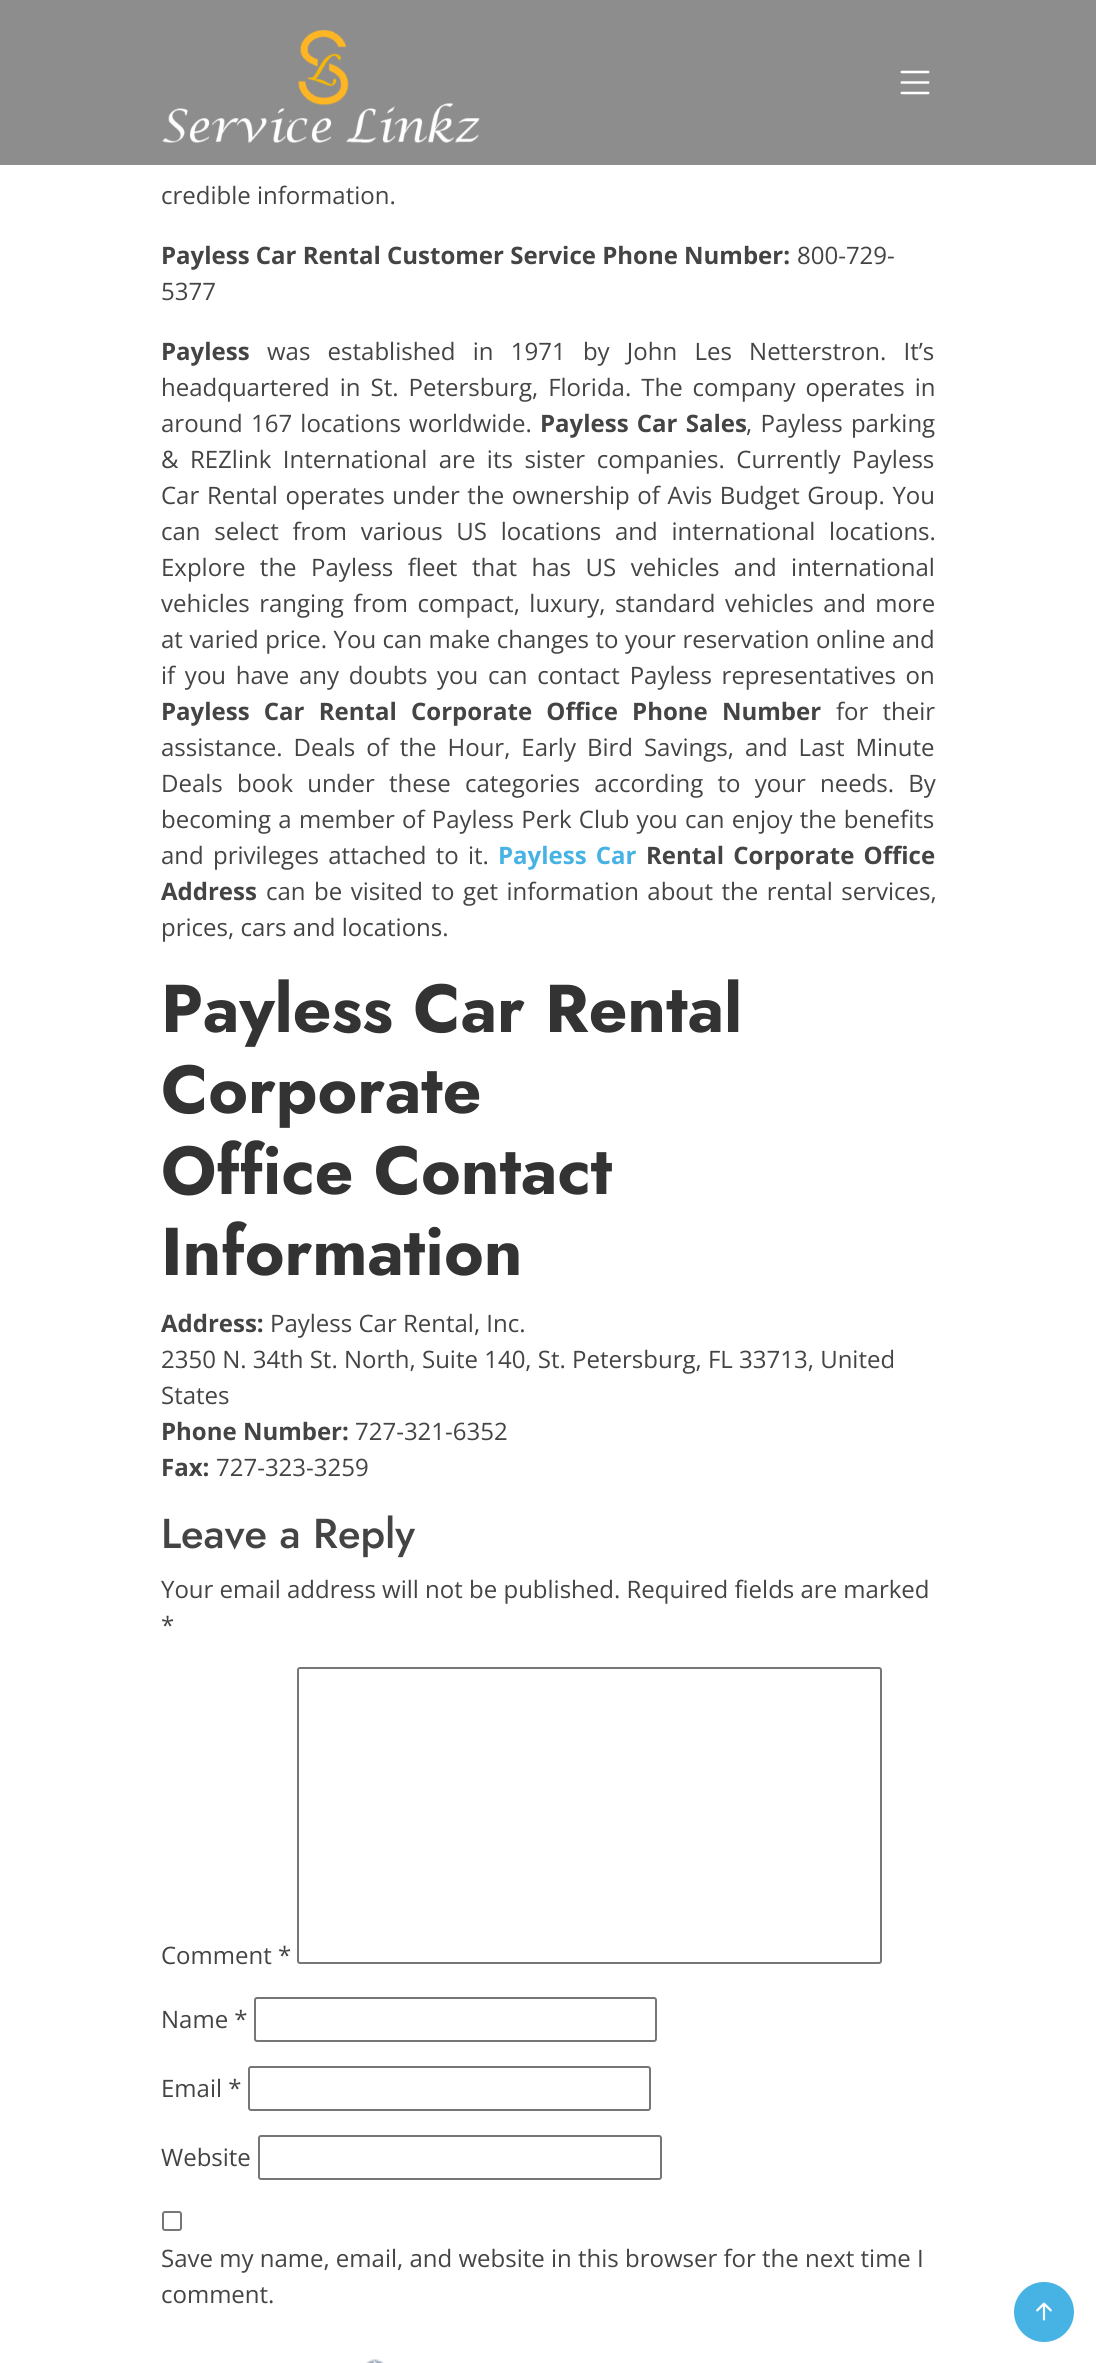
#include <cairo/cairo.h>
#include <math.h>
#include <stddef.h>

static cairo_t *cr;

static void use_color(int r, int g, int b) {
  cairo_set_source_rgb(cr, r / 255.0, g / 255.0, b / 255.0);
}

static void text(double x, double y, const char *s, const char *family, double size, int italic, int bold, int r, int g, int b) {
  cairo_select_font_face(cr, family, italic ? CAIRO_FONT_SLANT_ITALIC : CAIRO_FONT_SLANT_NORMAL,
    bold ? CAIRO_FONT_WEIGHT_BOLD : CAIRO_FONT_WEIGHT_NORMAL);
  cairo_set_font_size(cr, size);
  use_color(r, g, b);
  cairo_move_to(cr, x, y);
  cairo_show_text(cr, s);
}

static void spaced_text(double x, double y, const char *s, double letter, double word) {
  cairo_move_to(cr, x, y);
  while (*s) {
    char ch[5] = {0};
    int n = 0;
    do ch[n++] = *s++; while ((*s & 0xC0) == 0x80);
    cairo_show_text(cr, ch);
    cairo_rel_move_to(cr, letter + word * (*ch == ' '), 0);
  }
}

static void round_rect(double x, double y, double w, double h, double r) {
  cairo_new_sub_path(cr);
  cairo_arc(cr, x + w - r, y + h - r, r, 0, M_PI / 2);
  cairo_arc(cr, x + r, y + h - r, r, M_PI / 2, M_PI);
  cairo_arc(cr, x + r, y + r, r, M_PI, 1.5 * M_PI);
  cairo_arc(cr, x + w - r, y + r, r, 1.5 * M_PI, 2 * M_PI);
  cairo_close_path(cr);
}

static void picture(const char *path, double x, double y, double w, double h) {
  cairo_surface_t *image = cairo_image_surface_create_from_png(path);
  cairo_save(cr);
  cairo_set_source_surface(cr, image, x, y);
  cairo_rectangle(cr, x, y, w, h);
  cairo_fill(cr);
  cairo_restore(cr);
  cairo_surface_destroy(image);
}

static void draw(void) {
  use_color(255, 255, 255);
  cairo_paint(cr);
  cairo_set_source_rgba(cr, 0.51, 0.506, 0.506, 0.9);
  cairo_rectangle(cr, 0, 0, 1096, 165);
  cairo_fill(cr);
  picture("img_01.png", 162, 30, 318, 113);
  picture("img_02.png", 900, 70, 30, 25);
  round_rect(298, 1668, 583, 295, 2);
  use_color(118, 118, 118);
  cairo_stroke(cr);
  round_rect(255, 1998, 401, 43, 2);
  cairo_stroke(cr);
  round_rect(249, 2067, 401, 43, 2);
  cairo_stroke(cr);
  round_rect(259, 2136, 402, 43, 2);
  cairo_stroke(cr);
  round_rect(163, 2212, 18, 18, 2);
  cairo_stroke(cr);
  picture("img_03.png", 366, 2359, 18, 4);
  use_color(71, 178, 228);
  cairo_arc(cr, 1044, 2312, 30, 0, 2 * M_PI);
  cairo_fill(cr);
  picture("img_04.png", 1036, 2302, 16, 19);
  text(161, 204, "credible information.", "Open Sans", 24, 0, 0, 68, 68, 68);
  text(161, 264, "Payless Car Rental Customer Service Phone Number:", "Open Sans", 24, 0, 1, 68, 68, 68);
  text(797, 264, "800-729-", "Open Sans", 24, 0, 0, 68, 68, 68);
  text(161, 300, "5377", "Open Sans", 24, 0, 0, 68, 68, 68);
  text(161, 360, "Payless", "Open Sans", 24, 0, 1, 68, 68, 68);
  cairo_select_font_face(cr, "Open Sans", CAIRO_FONT_SLANT_NORMAL, CAIRO_FONT_WEIGHT_NORMAL);
  spaced_text(267, 360, "was established in 1971 by John Les Netterstron. It’s", 0, 11);
  spaced_text(161, 396, "headquartered in St. Petersburg, Florida. The company operates in", 0, 3.75);
  spaced_text(161, 432, "around 167 locations worldwide.", 0, 2);
  cairo_select_font_face(cr, "Open Sans", CAIRO_FONT_SLANT_NORMAL, CAIRO_FONT_WEIGHT_BOLD);
  spaced_text(540, 432, "Payless Car Sales", 0, 2);
  cairo_select_font_face(cr, "Open Sans", CAIRO_FONT_SLANT_NORMAL, CAIRO_FONT_WEIGHT_NORMAL);
  spaced_text(746, 432, ", Payless parking", 0, 2);
  spaced_text(161, 468, "& REZlink International are its sister companies. Currently Payless", 0, 5.25);
  spaced_text(161, 504, "Car Rental operates under the ownership of Avis Budget Group. You", 0, 1.4);
  spaced_text(161, 540, "can select from various US locations and international locations.", 0, 7.5);
  spaced_text(161, 576, "Explore the Payless fleet that has US vehicles and international", 0, 8.25);
  spaced_text(161, 612, "vehicles ranging from compact, luxury, standard vehicles and more", 0, 3.25);
  spaced_text(161, 648, "at varied price. You can make changes to your reservation online and", 0, 0.25);
  spaced_text(161, 684, "if you have any doubts you can contact Payless representatives on", 0, 3.5);
  cairo_select_font_face(cr, "Open Sans", CAIRO_FONT_SLANT_NORMAL, CAIRO_FONT_WEIGHT_BOLD);
  spaced_text(161, 720, "Payless Car Rental Corporate Office Phone Number", 0, 8);
  cairo_select_font_face(cr, "Open Sans", CAIRO_FONT_SLANT_NORMAL, CAIRO_FONT_WEIGHT_NORMAL);
  spaced_text(836, 720, "for their", 0, 8);
  spaced_text(161, 756, "assistance. Deals of the Hour, Early Bird Savings, and Last Minute", 0, 4.75);
  spaced_text(161, 792, "Deals book under these categories according to your needs. By", 0, 8);
  spaced_text(161, 828, "becoming a member of Payless Perk Club you can enjoy the benefits", 0, 1);
  spaced_text(161, 864, "and privileges attached to it.", 0, 3);
  cairo_select_font_face(cr, "Open Sans", CAIRO_FONT_SLANT_NORMAL, CAIRO_FONT_WEIGHT_BOLD);
  use_color(71, 178, 228);
  spaced_text(498, 864, "Payless Car", 0, 3);
  use_color(68, 68, 68);
  spaced_text(646, 864, "Rental Corporate Office", 0, 3);
  text(161, 900, "Address", "Open Sans", 24, 0, 1, 68, 68, 68);
  cairo_select_font_face(cr, "Open Sans", CAIRO_FONT_SLANT_NORMAL, CAIRO_FONT_WEIGHT_NORMAL);
  spaced_text(266, 900, "can be visited to get information about the rental services,", 0, 2.25);
  text(161, 936, "prices, cars and locations.", "Open Sans", 24, 0, 0, 68, 68, 68);
  text(161, 1032, "Payless Car Rental", "Jost", 67.5, 0, 1, 51, 51, 51);
  text(161, 1113, "Corporate", "Jost", 67.5, 0, 1, 51, 51, 51);
  text(161, 1194, "Office Contact", "Jost", 67.5, 0, 1, 51, 51, 51);
  text(161, 1275, "Information", "Jost", 67.5, 0, 1, 51, 51, 51);
  text(161, 1332, "Address:", "Open Sans", 24, 0, 1, 68, 68, 68);
  text(270, 1332, "Payless Car Rental, Inc.", "Open Sans", 24, 0, 0, 68, 68, 68);
  text(161, 1368, "2350 N. 34th St. North, Suite 140, St. Petersburg, FL 33713, United", "Open Sans", 24, 0, 0, 68, 68, 68);
  text(161, 1404, "States", "Open Sans", 24, 0, 0, 68, 68, 68);
  text(161, 1440, "Phone Number:", "Open Sans", 24, 0, 1, 68, 68, 68);
  text(355, 1440, "727-321-6352", "Open Sans", 24, 0, 0, 68, 68, 68);
  text(161, 1476, "Fax:", "Open Sans", 24, 0, 1, 68, 68, 68);
  text(216, 1476, "727-323-3259", "Open Sans", 24, 0, 0, 68, 68, 68);
  text(161, 1548, "Leave a Reply", "Jost Medium", 41.75, 0, 0, 68, 68, 68);
  text(161, 1598, "Your email address will not be published. Required fields are marked", "Open Sans", 24, 0, 0, 68, 68, 68);
  text(161, 1634, "*", "Open Sans", 24, 0, 0, 68, 68, 68);
  text(161, 1964, "Comment *", "Open Sans", 24, 0, 0, 68, 68, 68);
  text(161, 2028, "Name *", "Open Sans", 24, 0, 0, 68, 68, 68);
  text(161, 2097, "Email *", "Open Sans", 24, 0, 0, 68, 68, 68);
  text(161, 2166, "Website", "Open Sans", 24, 0, 0, 68, 68, 68);
  text(161, 2267, "Save my name, email, and website in this browser for the next time I", "Open Sans", 24, 0, 0, 68, 68, 68);
  text(161, 2303, "comment.", "Open Sans", 24, 0, 0, 68, 68, 68);
}

int main(void) {
  cairo_surface_t *surface = cairo_image_surface_create(CAIRO_FORMAT_RGB24, 1096, 2363);
  cr = cairo_create(surface);
  cairo_font_options_t *options = cairo_font_options_create();
  cairo_font_options_set_hint_metrics(options, CAIRO_HINT_METRICS_OFF);
  cairo_font_options_set_hint_style(options, CAIRO_HINT_STYLE_NONE);
  cairo_set_font_options(cr, options);
  cairo_set_miter_limit(cr, 4);
  draw();
  cairo_surface_write_to_png(surface, "out.png");
  cairo_font_options_destroy(options);
  cairo_destroy(cr);
  cairo_surface_destroy(surface);
  return 0;
}
